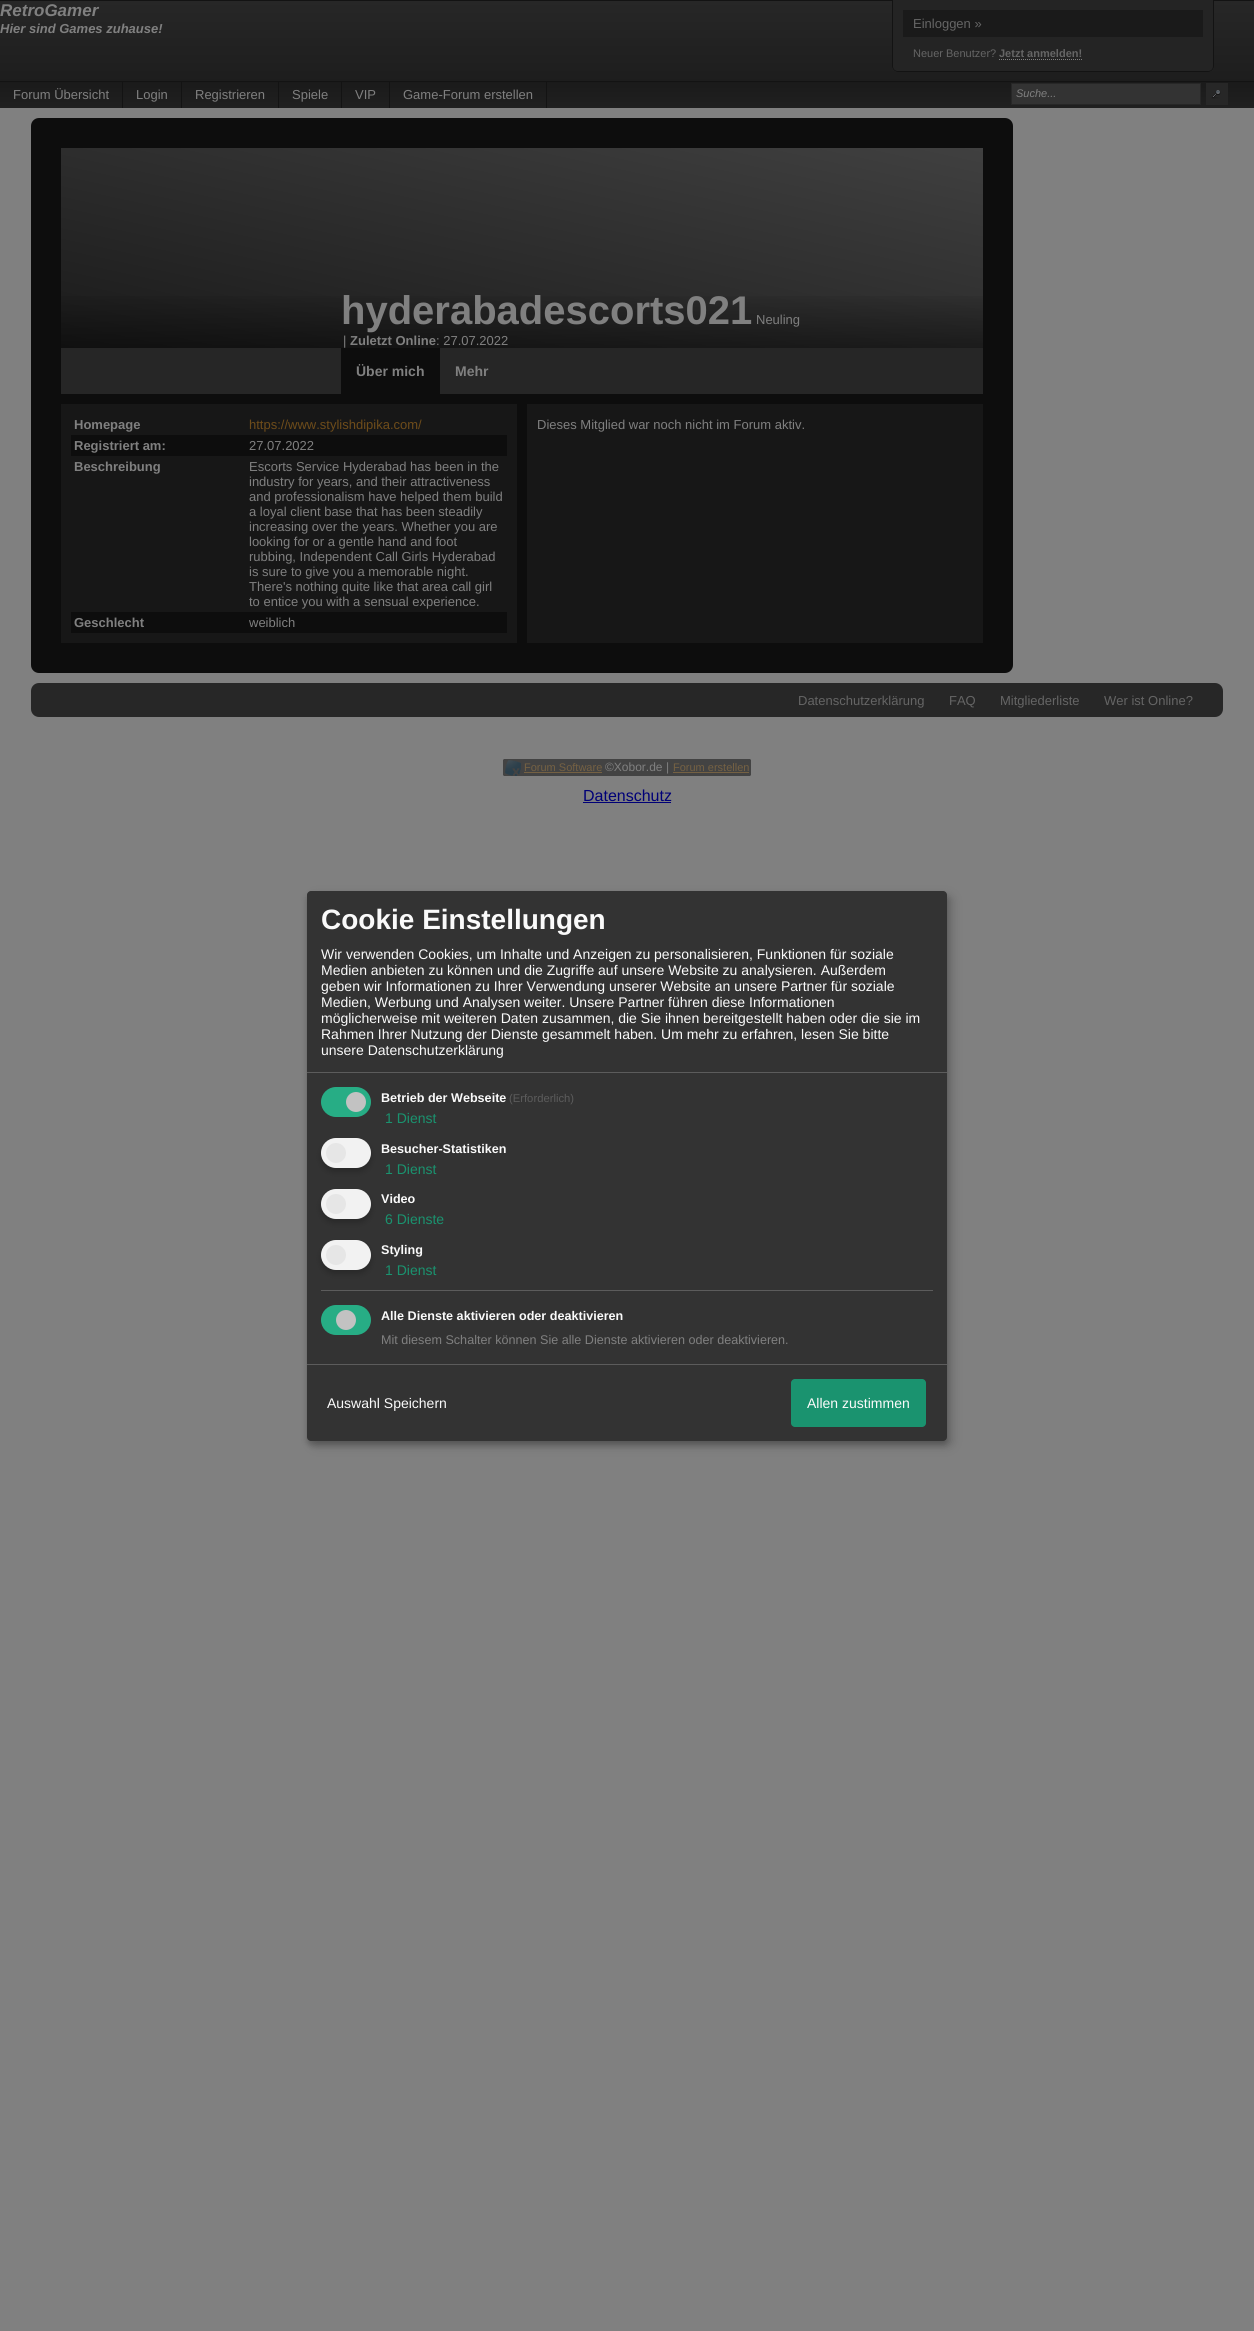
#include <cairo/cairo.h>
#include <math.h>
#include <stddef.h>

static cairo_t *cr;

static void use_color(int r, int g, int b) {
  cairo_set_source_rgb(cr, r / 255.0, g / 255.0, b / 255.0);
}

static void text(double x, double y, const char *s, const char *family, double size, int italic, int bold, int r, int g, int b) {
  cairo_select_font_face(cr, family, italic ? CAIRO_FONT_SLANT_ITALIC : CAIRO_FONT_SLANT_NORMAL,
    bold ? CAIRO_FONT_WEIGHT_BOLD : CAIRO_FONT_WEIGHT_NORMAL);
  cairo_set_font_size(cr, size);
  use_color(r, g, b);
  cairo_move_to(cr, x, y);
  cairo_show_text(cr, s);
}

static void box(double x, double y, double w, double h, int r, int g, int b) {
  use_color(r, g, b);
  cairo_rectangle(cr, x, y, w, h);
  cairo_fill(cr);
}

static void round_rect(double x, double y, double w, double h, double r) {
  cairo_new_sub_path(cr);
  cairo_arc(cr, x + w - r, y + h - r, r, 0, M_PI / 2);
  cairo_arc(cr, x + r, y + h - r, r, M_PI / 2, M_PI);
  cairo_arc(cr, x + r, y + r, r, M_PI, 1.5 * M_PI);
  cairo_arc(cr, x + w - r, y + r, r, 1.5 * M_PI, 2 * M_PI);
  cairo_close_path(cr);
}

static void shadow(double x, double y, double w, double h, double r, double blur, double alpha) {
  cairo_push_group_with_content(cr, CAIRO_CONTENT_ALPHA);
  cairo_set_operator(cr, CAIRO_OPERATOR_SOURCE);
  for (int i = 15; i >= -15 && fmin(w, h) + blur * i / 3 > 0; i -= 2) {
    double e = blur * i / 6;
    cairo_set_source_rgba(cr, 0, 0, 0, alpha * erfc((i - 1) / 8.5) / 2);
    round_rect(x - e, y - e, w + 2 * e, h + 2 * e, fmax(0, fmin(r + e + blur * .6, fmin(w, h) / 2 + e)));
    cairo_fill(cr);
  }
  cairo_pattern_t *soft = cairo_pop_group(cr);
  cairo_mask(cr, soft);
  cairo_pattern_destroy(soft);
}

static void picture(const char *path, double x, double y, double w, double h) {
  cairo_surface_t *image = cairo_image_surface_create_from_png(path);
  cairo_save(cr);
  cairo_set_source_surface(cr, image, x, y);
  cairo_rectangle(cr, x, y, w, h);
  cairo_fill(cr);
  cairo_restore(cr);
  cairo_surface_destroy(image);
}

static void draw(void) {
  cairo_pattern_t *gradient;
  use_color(128, 128, 128);
  cairo_paint(cr);
  box(0, 0, 1254, 1, 19, 19, 19);
  gradient = cairo_pattern_create_linear(0, 1, 0, 108);
  cairo_pattern_add_color_stop_rgba(gradient, 0, 0.153, 0.153, 0.153, 1);
  cairo_pattern_add_color_stop_rgba(gradient, 1, 0.102, 0.102, 0.102, 1);
  cairo_set_source(cr, gradient);
  cairo_pattern_destroy(gradient);
  cairo_rectangle(cr, 0, 1, 1254, 80);
  cairo_fill(cr);
  gradient = cairo_pattern_create_linear(0, 81, 0, 108);
  cairo_pattern_add_color_stop_rgba(gradient, 0, 0.102, 0.102, 0.102, 1);
  cairo_pattern_add_color_stop_rgba(gradient, 1, 0.125, 0.125, 0.125, 1);
  cairo_set_source(cr, gradient);
  cairo_pattern_destroy(gradient);
  cairo_rectangle(cr, 0, 82, 1254, 26);
  cairo_fill(cr);
  box(0, 81, 1254, 1, 19, 19, 19);
  box(122, 81, 1, 27, 19, 19, 19);
  box(181, 81, 1, 27, 19, 19, 19);
  box(278, 81, 1, 27, 19, 19, 19);
  box(341, 81, 1, 27, 19, 19, 19);
  box(546, 81, 1, 27, 19, 19, 19);
  box(389, 81, 1, 27, 19, 19, 19);
  use_color(51, 51, 51);
  cairo_rectangle(cr, 1011.5, 83.5, 189, 21);
  cairo_fill_preserve(cr);
  use_color(39, 39, 39);
  cairo_set_line_width(cr, 1);
  cairo_stroke(cr);
  box(1206, 83, 22, 22, 39, 39, 39);
  picture("img_01.png", 1211, 90, 10, 9);
  use_color(36, 36, 36);
  cairo_new_path(cr);
  cairo_move_to(cr, 892, 0);
  cairo_line_to(cr, 1214, 0);
  cairo_line_to(cr, 1214, 66);
  cairo_curve_to(cr, 1214, 69.5, 1211.5, 72, 1208, 72);
  cairo_line_to(cr, 898, 72);
  cairo_curve_to(cr, 894.5, 72, 892, 69.5, 892, 66);
  cairo_close_path(cr);
  cairo_fill(cr);
  use_color(19, 19, 19);
  cairo_set_fill_rule(cr, CAIRO_FILL_RULE_EVEN_ODD);
  cairo_new_path(cr);
  cairo_move_to(cr, 892, 0);
  cairo_line_to(cr, 1214, 0);
  cairo_line_to(cr, 1214, 66);
  cairo_curve_to(cr, 1214, 69, 1211, 72, 1208, 72);
  cairo_line_to(cr, 898, 72);
  cairo_curve_to(cr, 895, 72, 892, 69, 892, 66);
  cairo_close_path(cr);
  cairo_move_to(cr, 893, 0);
  cairo_line_to(cr, 1213, 0);
  cairo_line_to(cr, 1213, 66);
  cairo_curve_to(cr, 1213, 69, 1211, 71, 1208, 71);
  cairo_line_to(cr, 898, 71);
  cairo_curve_to(cr, 895, 71, 893, 69, 893, 66);
  cairo_close_path(cr);
  cairo_fill(cr);
  box(903, 10, 300, 27, 26, 26, 26);
  cairo_new_path(cr);
  cairo_move_to(cr, 999, 59.5);
  cairo_line_to(cr, 1082, 59.5);
  use_color(128, 128, 128);
  cairo_set_dash(cr, (double[]){1, 1}, 2, 0);
  cairo_stroke(cr);
  use_color(13, 13, 13);
  round_rect(31, 118, 982, 555, 8);
  cairo_fill(cr);
  box(61, 404, 922, 239, 23, 23, 23);
  gradient = cairo_pattern_create_linear(481, 439, 563, 57);
  cairo_pattern_add_color_stop_rgba(gradient, 0, 0.102, 0.102, 0.102, 1);
  cairo_pattern_add_color_stop_rgba(gradient, 1, 0.251, 0.251, 0.251, 1);
  cairo_set_source(cr, gradient);
  cairo_pattern_destroy(gradient);
  cairo_rectangle(cr, 61, 148, 922, 200);
  cairo_fill(cr);
  gradient = cairo_pattern_create_linear(522, 348, 522, 288);
  cairo_pattern_add_color_stop_rgba(gradient, 0, 0, 0, 0, 0.4);
  cairo_pattern_add_color_stop_rgba(gradient, 1, 0, 0, 0, 0);
  cairo_set_source(cr, gradient);
  cairo_pattern_destroy(gradient);
  cairo_rectangle(cr, 61, 296, 922, 52);
  cairo_fill(cr);
  box(61, 348, 922, 46, 38, 38, 38);
  box(341, 348, 99, 46, 13, 13, 13);
  box(71, 435, 436, 21, 13, 13, 13);
  box(71, 612, 436, 21, 13, 13, 13);
  box(517, 404, 10, 239, 13, 13, 13);
  use_color(39, 39, 39);
  round_rect(31, 683, 1192, 34, 8);
  cairo_fill(cr);
  use_color(67, 67, 67);
  round_rect(502, 758, 250, 19, 5);
  cairo_fill(cr);
  box(502, 758, 250, 1, 128, 128, 128);
  box(751, 758, 1, 19, 128, 128, 128);
  box(502, 776, 250, 1, 128, 128, 128);
  box(502, 758, 1, 19, 128, 128, 128);
  picture("img_02.png", 505, 760, 16, 16);
  box(524, 772, 78, 1, 117, 97, 67);
  box(673, 772, 76, 1, 117, 97, 67);
  box(583, 802, 88, 1, 0, 0, 119);
  use_color(0, 0, 0);
  shadow(312, 896, 640, 550, 4, 5, 0.19);
  shadow(307, 895, 640, 550, 4, 3, 0.2);
  use_color(51, 51, 51);
  round_rect(307, 891, 640, 550, 4);
  cairo_fill(cr);
  box(307, 1072, 640, 1, 92, 92, 92);
  use_color(39, 173, 133);
  round_rect(321, 1087, 50, 30, 15);
  cairo_fill(cr);
  use_color(194, 194, 194);
  cairo_arc(cr, 356, 1102, 10, 0, 2 * M_PI);
  cairo_fill(cr);
  use_color(0, 0, 0);
  shadow(321, 1142, 50, 30, 15, 3, 0.2);
  use_color(242, 242, 242);
  round_rect(321, 1138, 50, 30, 15);
  cairo_fill(cr);
  use_color(230, 230, 230);
  cairo_arc(cr, 336, 1153, 10, 0, 2 * M_PI);
  cairo_fill(cr);
  use_color(0, 0, 0);
  shadow(321, 1193, 50, 30, 15, 3, 0.2);
  use_color(242, 242, 242);
  round_rect(321, 1189, 50, 30, 15);
  cairo_fill(cr);
  use_color(230, 230, 230);
  cairo_arc(cr, 336, 1204, 10, 0, 2 * M_PI);
  cairo_fill(cr);
  use_color(0, 0, 0);
  shadow(321, 1244, 50, 30, 15, 3, 0.2);
  use_color(242, 242, 242);
  round_rect(321, 1240, 50, 30, 15);
  cairo_fill(cr);
  use_color(230, 230, 230);
  cairo_arc(cr, 336, 1255, 10, 0, 2 * M_PI);
  cairo_fill(cr);
  box(321, 1290, 612, 1, 92, 92, 92);
  use_color(39, 173, 133);
  round_rect(321, 1305, 50, 30, 15);
  cairo_fill(cr);
  use_color(194, 194, 194);
  cairo_arc(cr, 346, 1320, 10, 0, 2 * M_PI);
  cairo_fill(cr);
  box(307, 1364, 640, 1, 92, 92, 92);
  use_color(26, 147, 111);
  round_rect(791, 1379, 135, 48, 4);
  cairo_fill(cr);
  text(0, 16, "RetroGamer", "Liberation Sans", 17, 1, 1, 128, 128, 128);
  text(0, 33, "Hier sind Games zuhause!", "Liberation Sans", 13, 1, 1, 128, 128, 128);
  text(13, 99, "Forum Übersicht", "Liberation Sans", 13, 0, 0, 128, 128, 128);
  text(136, 99, "Login", "Liberation Sans", 13, 0, 0, 128, 128, 128);
  text(195, 99, "Registrieren", "Liberation Sans", 13, 0, 0, 128, 128, 128);
  text(292, 99, "Spiele", "Liberation Sans", 13, 0, 0, 128, 128, 128);
  text(355, 99, "VIP", "Liberation Sans", 13, 0, 0, 128, 128, 128);
  text(403, 99, "Game-Forum erstellen", "Liberation Sans", 13, 0, 0, 128, 128, 128);
  text(1016, 97, "Suche...", "Liberation Sans", 11, 1, 0, 128, 128, 128);
  text(913, 28, "Einloggen »", "Liberation Sans", 13, 0, 0, 101, 101, 101);
  text(913, 57, "Neuer Benutzer?", "Liberation Sans", 11, 0, 0, 101, 101, 101);
  text(999, 57, "Jetzt anmelden!", "Liberation Sans", 11, 0, 1, 101, 101, 101);
  text(341, 324, "hyderabadescorts021", "Liberation Sans", 40, 0, 1, 128, 128, 128);
  text(756, 324, "Neuling", "Liberation Sans", 13, 0, 0, 128, 128, 128);
  text(343, 345, "|", "Liberation Sans", 13, 0, 0, 128, 128, 128);
  text(350, 345, "Zuletzt Online", "Liberation Sans", 13, 0, 1, 128, 128, 128);
  text(436, 345, ": 27.07.2022", "Liberation Sans", 13, 0, 0, 128, 128, 128);
  text(356, 376, "Über mich", "Liberation Sans", 14, 0, 1, 128, 128, 128);
  text(455, 376, "Mehr", "Liberation Sans", 14, 0, 1, 128, 128, 128);
  text(74, 429, "Homepage", "Liberation Sans", 13, 0, 1, 128, 128, 128);
  text(249, 429, "https://www.stylishdipika.com/", "Liberation Sans", 13, 0, 0, 110, 76, 26);
  text(74, 450, "Registriert am:", "Liberation Sans", 13, 0, 1, 128, 128, 128);
  text(249, 450, "27.07.2022", "Liberation Sans", 13, 0, 0, 128, 128, 128);
  text(74, 471, "Beschreibung", "Liberation Sans", 13, 0, 1, 128, 128, 128);
  text(249, 471, "Escorts Service Hyderabad has been in the", "Liberation Sans", 13, 0, 0, 128, 128, 128);
  text(249, 486, "industry for years, and their attractiveness", "Liberation Sans", 13, 0, 0, 128, 128, 128);
  text(249, 501, "and professionalism have helped them build", "Liberation Sans", 13, 0, 0, 128, 128, 128);
  text(249, 516, "a loyal client base that has been steadily", "Liberation Sans", 13, 0, 0, 128, 128, 128);
  text(249, 531, "increasing over the years. Whether you are", "Liberation Sans", 13, 0, 0, 128, 128, 128);
  text(249, 546, "looking for or a gentle hand and foot", "Liberation Sans", 13, 0, 0, 128, 128, 128);
  text(249, 561, "rubbing, Independent Call Girls Hyderabad", "Liberation Sans", 13, 0, 0, 128, 128, 128);
  text(249, 576, "is sure to give you a memorable night.", "Liberation Sans", 13, 0, 0, 128, 128, 128);
  text(249, 591, "There's nothing quite like that area call girl", "Liberation Sans", 13, 0, 0, 128, 128, 128);
  text(249, 606, "to entice you with a sensual experience.", "Liberation Sans", 13, 0, 0, 128, 128, 128);
  text(74, 627, "Geschlecht", "Liberation Sans", 13, 0, 1, 128, 128, 128);
  text(249, 627, "weiblich", "Liberation Sans", 13, 0, 0, 128, 128, 128);
  text(537, 429, "Dieses Mitglied war noch nicht im Forum aktiv.", "Liberation Sans", 13, 0, 0, 128, 128, 128);
  text(798, 705, "Datenschutzerklärung", "Liberation Sans", 13, 0, 0, 101, 101, 101);
  text(949, 705, "FAQ", "Liberation Sans", 13, 0, 0, 101, 101, 101);
  text(1000, 705, "Mitgliederliste", "Liberation Sans", 13, 0, 0, 101, 101, 101);
  text(1104, 705, "Wer ist Online?", "Liberation Sans", 13, 0, 0, 101, 101, 101);
  text(524, 771, "Forum Software", "Liberation Sans", 11, 0, 0, 117, 97, 67);
  text(605, 771, "©Xobor.de |", "Liberation Sans", 12, 0, 0, 128, 128, 128);
  text(673, 771, "Forum erstellen", "Liberation Sans", 11, 0, 0, 117, 97, 67);
  text(583, 801, "Datenschutz", "Liberation Sans", 16, 0, 0, 0, 0, 119);
  text(321, 929, "Cookie Einstellungen", "Liberation Sans", 28, 0, 1, 250, 250, 250);
  text(321, 959, "Wir verwenden Cookies, um Inhalte und Anzeigen zu personalisieren, Funktionen für soziale", "Liberation Sans", 14, 0, 0, 250, 250, 250);
  text(321, 975, "Medien anbieten zu können und die Zugriffe auf unsere Website zu analysieren. Außerdem", "Liberation Sans", 14, 0, 0, 250, 250, 250);
  text(321, 991, "geben wir Informationen zu Ihrer Verwendung unserer Website an unsere Partner für soziale", "Liberation Sans", 14, 0, 0, 250, 250, 250);
  text(321, 1007, "Medien, Werbung und Analysen weiter. Unsere Partner führen diese Informationen", "Liberation Sans", 14, 0, 0, 250, 250, 250);
  text(321, 1023, "möglicherweise mit weiteren Daten zusammen, die Sie ihnen bereitgestellt haben oder die sie im", "Liberation Sans", 14, 0, 0, 250, 250, 250);
  text(321, 1039, "Rahmen Ihrer Nutzung der Dienste gesammelt haben. Um mehr zu erfahren, lesen Sie bitte", "Liberation Sans", 14, 0, 0, 250, 250, 250);
  text(321, 1055, "unsere Datenschutzerklärung", "Liberation Sans", 14, 0, 0, 250, 250, 250);
  text(381, 1102, "Betrieb der Webseite", "Liberation Sans", 12.6, 0, 1, 250, 250, 250);
  text(509, 1102, "(Erforderlich)", "Liberation Sans", 11.25, 0, 0, 92, 92, 92);
  text(385, 1123, "1 Dienst", "Liberation Sans", 14, 0, 0, 26, 147, 111);
  text(381, 1153, "Besucher-Statistiken", "Liberation Sans", 12.6, 0, 1, 250, 250, 250);
  text(385, 1174, "1 Dienst", "Liberation Sans", 14, 0, 0, 26, 147, 111);
  text(381, 1203, "Video", "Liberation Sans", 12.6, 0, 1, 250, 250, 250);
  text(385, 1224, "6 Dienste", "Liberation Sans", 14, 0, 0, 26, 147, 111);
  text(381, 1254, "Styling", "Liberation Sans", 12.6, 0, 1, 250, 250, 250);
  text(385, 1275, "1 Dienst", "Liberation Sans", 14, 0, 0, 26, 147, 111);
  text(381, 1320, "Alle Dienste aktivieren oder deaktivieren", "Liberation Sans", 12.6, 0, 1, 250, 250, 250);
  text(381, 1344, "Mit diesem Schalter können Sie alle Dienste aktivieren oder deaktivieren.", "Liberation Sans", 12.6, 0, 0, 128, 128, 128);
  text(327, 1408, "Auswahl Speichern", "Liberation Sans", 14, 0, 0, 250, 250, 250);
  text(807, 1408, "Allen zustimmen", "Liberation Sans", 14, 0, 0, 250, 250, 250);
}

int main(void) {
  cairo_surface_t *surface = cairo_image_surface_create(CAIRO_FORMAT_RGB24, 1254, 2331);
  cr = cairo_create(surface);
  cairo_font_options_t *options = cairo_font_options_create();
  cairo_font_options_set_hint_metrics(options, CAIRO_HINT_METRICS_OFF);
  cairo_font_options_set_hint_style(options, CAIRO_HINT_STYLE_NONE);
  cairo_set_font_options(cr, options);
  cairo_set_miter_limit(cr, 4);
  draw();
  cairo_surface_write_to_png(surface, "out.png");
  cairo_font_options_destroy(options);
  cairo_destroy(cr);
  cairo_surface_destroy(surface);
  return 0;
}
